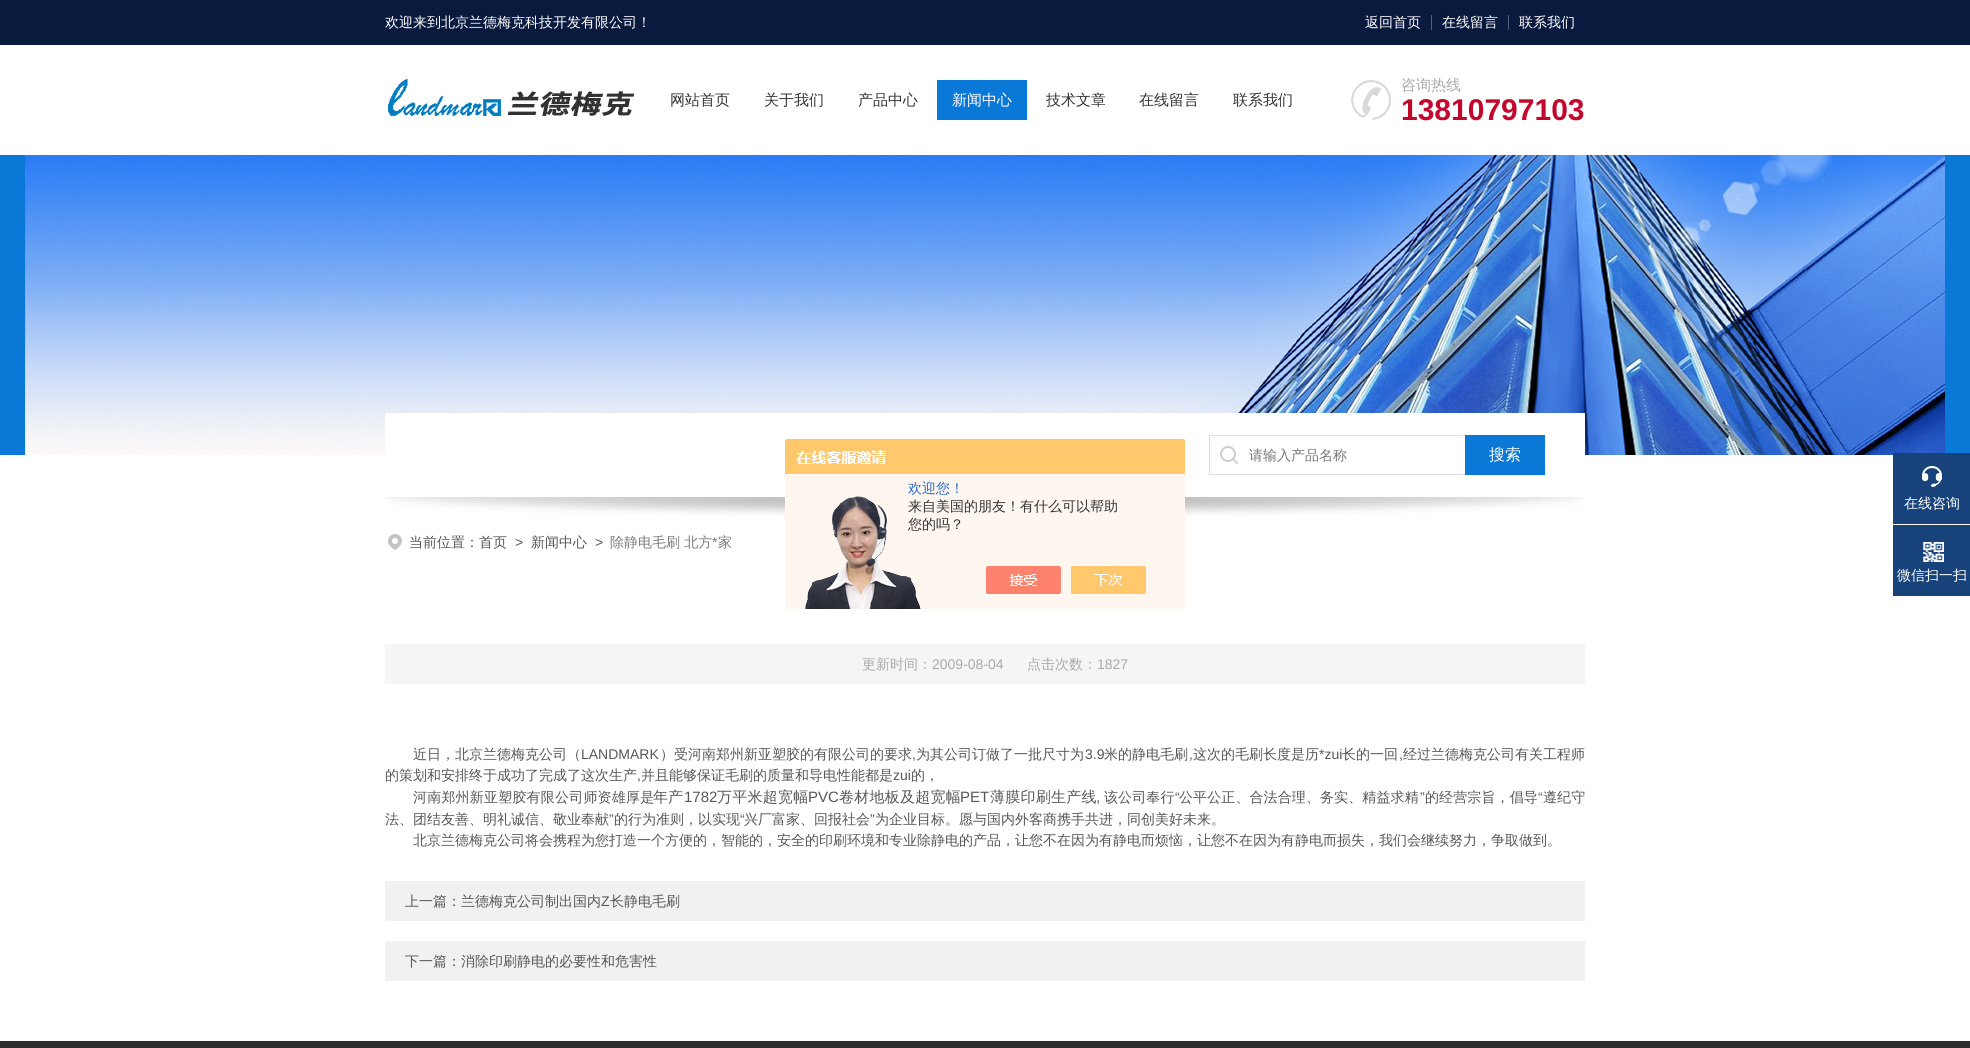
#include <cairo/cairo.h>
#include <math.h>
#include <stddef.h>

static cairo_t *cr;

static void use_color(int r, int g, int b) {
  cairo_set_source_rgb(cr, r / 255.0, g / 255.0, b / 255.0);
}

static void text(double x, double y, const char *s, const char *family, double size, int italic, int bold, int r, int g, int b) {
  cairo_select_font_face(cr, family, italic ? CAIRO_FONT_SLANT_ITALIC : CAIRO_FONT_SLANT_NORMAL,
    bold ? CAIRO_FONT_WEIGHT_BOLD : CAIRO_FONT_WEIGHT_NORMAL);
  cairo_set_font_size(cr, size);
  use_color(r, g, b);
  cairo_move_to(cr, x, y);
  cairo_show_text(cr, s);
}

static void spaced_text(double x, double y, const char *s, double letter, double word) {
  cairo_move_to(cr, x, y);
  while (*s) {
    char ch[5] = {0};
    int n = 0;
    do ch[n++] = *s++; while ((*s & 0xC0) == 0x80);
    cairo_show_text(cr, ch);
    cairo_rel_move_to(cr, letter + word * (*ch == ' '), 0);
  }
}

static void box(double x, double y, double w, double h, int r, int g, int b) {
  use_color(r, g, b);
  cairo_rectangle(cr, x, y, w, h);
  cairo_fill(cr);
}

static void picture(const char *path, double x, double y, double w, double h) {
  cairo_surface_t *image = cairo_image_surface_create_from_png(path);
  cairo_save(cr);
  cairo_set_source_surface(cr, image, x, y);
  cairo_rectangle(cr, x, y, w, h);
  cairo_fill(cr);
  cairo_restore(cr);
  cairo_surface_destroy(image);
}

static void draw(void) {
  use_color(255, 255, 255);
  cairo_paint(cr);
  box(0, 0, 1970, 45, 10, 26, 62);
  box(1431, 15, 1, 15, 84, 95, 120);
  box(1508, 15, 1, 15, 84, 95, 120);
  picture("img_01.png", 388, 79, 247, 39);
  box(937, 80, 90, 40, 10, 120, 215);
  picture("img_02.png", 1351, 80, 40, 40);
  box(0, 155, 1970, 300, 10, 120, 215);
  picture("img_03.png", 25, 155, 1920, 300);
  box(385, 413, 1200, 42, 255, 255, 255);
  picture("img_04.png", 386, 497, 1198, 20);
  picture("img_05.png", 1220, 446, 18, 18);
  box(1209, 435, 256, 1, 223, 223, 223);
  box(1209, 474, 256, 1, 223, 223, 223);
  box(1209, 435, 1, 40, 223, 223, 223);
  box(1465, 435, 80, 40, 10, 120, 215);
  picture("img_06.png", 388, 534, 14, 16);
  picture("img_07.png", 785, 439, 400, 170);
  box(1893, 453, 77, 71, 24, 67, 122);
  picture("img_08.png", 1922, 466, 20, 21);
  box(1893, 525, 77, 71, 24, 67, 122);
  picture("img_09.png", 1923, 542, 21, 20);
  box(385, 644, 1200, 40, 245, 245, 245);
  box(385, 881, 1200, 40, 241, 241, 241);
  box(385, 941, 1200, 40, 241, 241, 241);
  box(0, 1041, 1970, 7, 46, 46, 46);
  text(385, 27, "欢迎来到北京兰德梅克科技开发有限公司！", "WenQuanYi Zen Hei Medium", 14, 0, 0, 255, 255, 255);
  text(1365, 27, "返回首页", "WenQuanYi Zen Hei Medium", 14, 0, 0, 255, 255, 255);
  text(1442, 27, "在线留言", "WenQuanYi Zen Hei Medium", 14, 0, 0, 255, 255, 255);
  text(1519, 27, "联系我们", "WenQuanYi Zen Hei Medium", 14, 0, 0, 255, 255, 255);
  text(670, 105, "网站首页", "WenQuanYi Zen Hei Medium", 15, 0, 0, 51, 51, 51);
  text(764, 105, "关于我们", "WenQuanYi Zen Hei Medium", 15, 0, 0, 51, 51, 51);
  text(858, 105, "产品中心", "WenQuanYi Zen Hei Medium", 15, 0, 0, 51, 51, 51);
  text(952, 105, "新闻中心", "WenQuanYi Zen Hei Medium", 15, 0, 0, 255, 255, 255);
  text(1046, 105, "技术文章", "WenQuanYi Zen Hei Medium", 15, 0, 0, 51, 51, 51);
  text(1139, 105, "在线留言", "WenQuanYi Zen Hei Medium", 15, 0, 0, 51, 51, 51);
  text(1233, 105, "联系我们", "WenQuanYi Zen Hei Medium", 15, 0, 0, 51, 51, 51);
  text(1401, 90, "咨询热线", "WenQuanYi Zen Hei Medium", 15, 0, 0, 170, 170, 170);
  text(1401, 120, "13810797103", "Liberation Sans", 30, 0, 1, 195, 6, 44);
  text(1249, 460, "请输入产品名称", "WenQuanYi Zen Hei Medium", 14, 0, 0, 121, 121, 121);
  text(1489, 460, "搜索", "WenQuanYi Zen Hei Medium", 16, 0, 0, 255, 255, 255);
  text(409, 547, "当前位置：首页", "WenQuanYi Zen Hei Medium", 14, 0, 0, 86, 86, 86);
  text(515, 547, ">", "Liberation Sans", 14, 0, 0, 86, 86, 86);
  text(531, 547, "新闻中心", "WenQuanYi Zen Hei Medium", 14, 0, 0, 86, 86, 86);
  text(595, 547, ">", "Liberation Sans", 14, 0, 0, 86, 86, 86);
  text(610, 547, "除静电毛刷 北方", "WenQuanYi Zen Hei Medium", 14, 0, 0, 121, 121, 121);
  text(712, 547, "*", "Liberation Sans", 14, 0, 0, 121, 121, 121);
  text(718, 547, "家", "WenQuanYi Zen Hei Medium", 14, 0, 0, 121, 121, 121);
  text(908, 493, "欢迎您！", "WenQuanYi Zen Hei Medium", 14, 0, 0, 46, 110, 198);
  text(908, 511, "来自美国的朋友！有什么可以帮助", "WenQuanYi Zen Hei Medium", 14, 0, 0, 51, 51, 51);
  text(908, 529, "您的吗？", "WenQuanYi Zen Hei Medium", 14, 0, 0, 51, 51, 51);
  text(1904, 508, "在线咨询", "WenQuanYi Zen Hei Medium", 14, 0, 0, 255, 255, 255);
  text(1897, 580, "微信扫一扫", "WenQuanYi Zen Hei Medium", 14, 0, 0, 255, 255, 255);
  text(862, 669, "更新时间：", "WenQuanYi Zen Hei Medium", 14, 0, 0, 170, 170, 170);
  text(932, 669, "2009-08-04", "Liberation Sans", 14, 0, 0, 170, 170, 170);
  text(1027, 669, "点击次数：", "WenQuanYi Zen Hei Medium", 14, 0, 0, 170, 170, 170);
  text(1097, 669, "1827", "Liberation Sans", 14, 0, 0, 170, 170, 170);
  text(413, 759, "近日，北京兰德梅克公司（", "WenQuanYi Zen Hei Medium", 14, 0, 0, 86, 86, 86);
  text(581, 759, "LANDMARK", "Liberation Sans", 14, 0, 0, 86, 86, 86);
  text(660, 759, "）受河南郑州新亚塑胶的有限公司的要求", "WenQuanYi Zen Hei Medium", 14, 0, 0, 86, 86, 86);
  text(912, 759, ",", "Liberation Sans", 14, 0, 0, 86, 86, 86);
  text(916, 759, "为其公司订做了一批尺寸为", "WenQuanYi Zen Hei Medium", 14, 0, 0, 86, 86, 86);
  text(1085, 759, "3.9", "Liberation Sans", 14, 0, 0, 86, 86, 86);
  text(1104, 759, "米的静电毛刷", "WenQuanYi Zen Hei Medium", 14, 0, 0, 86, 86, 86);
  text(1189, 759, ",", "Liberation Sans", 14, 0, 0, 86, 86, 86);
  text(1193, 759, "这次的毛刷长度是历", "WenQuanYi Zen Hei Medium", 14, 0, 0, 86, 86, 86);
  text(1319, 759, "*zui", "Liberation Sans", 14, 0, 0, 86, 86, 86);
  text(1342, 759, "长的一回", "WenQuanYi Zen Hei Medium", 14, 0, 0, 86, 86, 86);
  text(1399, 759, ",", "Liberation Sans", 14, 0, 0, 86, 86, 86);
  text(1403, 759, "经过兰德梅克公司有关工程师", "WenQuanYi Zen Hei Medium", 14, 0, 0, 86, 86, 86);
  text(385, 780, "的策划和安排终于成功了完成了这次生产", "WenQuanYi Zen Hei Medium", 14, 0, 0, 86, 86, 86);
  text(637, 780, ",", "Liberation Sans", 14, 0, 0, 86, 86, 86);
  text(641, 780, "并且能够保证毛刷的质量和导电性能都是", "WenQuanYi Zen Hei Medium", 14, 0, 0, 86, 86, 86);
  text(893, 780, "zui", "Liberation Sans", 14, 0, 0, 86, 86, 86);
  text(911, 780, "的，", "WenQuanYi Zen Hei Medium", 14, 0, 0, 86, 86, 86);
  spaced_text(413, 802, "河南郑州新亚塑胶有限公司师资雄厚是", 0.2, 0);
  text(653, 802, "年产", "WenQuanYi Zen Hei Medium", 15, 0, 0, 86, 86, 86);
  text(684, 802, "1782", "Liberation Sans", 15, 0, 0, 86, 86, 86);
  cairo_select_font_face(cr, "WenQuanYi Zen Hei Medium", CAIRO_FONT_SLANT_NORMAL, CAIRO_FONT_WEIGHT_NORMAL);
  spaced_text(717, 802, "万平米超宽幅", 0.25, 0);
  text(808, 802, "PVC", "Liberation Sans", 15, 0, 0, 86, 86, 86);
  cairo_select_font_face(cr, "WenQuanYi Zen Hei Medium", CAIRO_FONT_SLANT_NORMAL, CAIRO_FONT_WEIGHT_NORMAL);
  spaced_text(839, 802, "卷材地板及超宽幅", 0.25, 0);
  text(960, 802, "PET", "Liberation Sans", 15, 0, 0, 86, 86, 86);
  cairo_select_font_face(cr, "WenQuanYi Zen Hei Medium", CAIRO_FONT_SLANT_NORMAL, CAIRO_FONT_WEIGHT_NORMAL);
  spaced_text(990, 802, "薄膜印刷生产线", 0.25, 0);
  cairo_set_font_size(cr, 14);
  spaced_text(1104, 802, "该公司奉行", 0.1, 0);
  cairo_select_font_face(cr, "Liberation Sans", CAIRO_FONT_SLANT_NORMAL, CAIRO_FONT_WEIGHT_NORMAL);
  spaced_text(1175, 802, "“", 0.1, 0);
  cairo_select_font_face(cr, "WenQuanYi Zen Hei Medium", CAIRO_FONT_SLANT_NORMAL, CAIRO_FONT_WEIGHT_NORMAL);
  spaced_text(1179, 802, "公平公正、合法合理、务实、精益求精", 0.1, 0);
  cairo_select_font_face(cr, "Liberation Sans", CAIRO_FONT_SLANT_NORMAL, CAIRO_FONT_WEIGHT_NORMAL);
  spaced_text(1420, 802, "”", 0.1, 0);
  cairo_select_font_face(cr, "WenQuanYi Zen Hei Medium", CAIRO_FONT_SLANT_NORMAL, CAIRO_FONT_WEIGHT_NORMAL);
  spaced_text(1425, 802, "的经营宗旨，倡导", 0.1, 0);
  cairo_select_font_face(cr, "Liberation Sans", CAIRO_FONT_SLANT_NORMAL, CAIRO_FONT_WEIGHT_NORMAL);
  spaced_text(1538, 802, "“", 0.1, 0);
  cairo_select_font_face(cr, "WenQuanYi Zen Hei Medium", CAIRO_FONT_SLANT_NORMAL, CAIRO_FONT_WEIGHT_NORMAL);
  spaced_text(1543, 802, "遵纪守", 0.1, 0);
  text(1096, 802, ",", "Liberation Sans", 15, 0, 0, 86, 86, 86);
  text(385, 824, "法、团结友善、明礼诚信、敬业奉献", "WenQuanYi Zen Hei Medium", 14, 0, 0, 86, 86, 86);
  text(609, 824, "”", "Liberation Sans", 14, 0, 0, 86, 86, 86);
  text(614, 824, "的行为准则，以实现", "WenQuanYi Zen Hei Medium", 14, 0, 0, 86, 86, 86);
  text(740, 824, "“", "Liberation Sans", 14, 0, 0, 86, 86, 86);
  text(744, 824, "兴厂富家、回报社会", "WenQuanYi Zen Hei Medium", 14, 0, 0, 86, 86, 86);
  text(870, 824, "”", "Liberation Sans", 14, 0, 0, 86, 86, 86);
  text(875, 824, "为企业目标。愿与国内外客商携手共进，同创美好未来。", "WenQuanYi Zen Hei Medium", 14, 0, 0, 86, 86, 86);
  text(413, 845, "北京兰德梅克公司将会携程为您打造一个方便的，智能的，安全的印刷环境和专业除静电的产品，让您不在因为有静电而烦恼，让您不在因为有静电而损失，我们会继续努力，争取做到。", "WenQuanYi Zen Hei Medium", 14, 0, 0, 86, 86, 86);
  text(405, 906, "上一篇：兰德梅克公司制出国内", "WenQuanYi Zen Hei Medium", 14, 0, 0, 86, 86, 86);
  text(601, 906, "Z", "Liberation Sans", 14, 0, 0, 86, 86, 86);
  text(610, 906, "长静电毛刷", "WenQuanYi Zen Hei Medium", 14, 0, 0, 86, 86, 86);
  text(405, 966, "下一篇：消除印刷静电的必要性和危害性", "WenQuanYi Zen Hei Medium", 14, 0, 0, 86, 86, 86);
}

int main(void) {
  cairo_surface_t *surface = cairo_image_surface_create(CAIRO_FORMAT_RGB24, 1970, 1048);
  cr = cairo_create(surface);
  cairo_font_options_t *options = cairo_font_options_create();
  cairo_font_options_set_hint_metrics(options, CAIRO_HINT_METRICS_OFF);
  cairo_font_options_set_hint_style(options, CAIRO_HINT_STYLE_NONE);
  cairo_set_font_options(cr, options);
  cairo_set_miter_limit(cr, 4);
  draw();
  cairo_surface_write_to_png(surface, "out.png");
  cairo_font_options_destroy(options);
  cairo_destroy(cr);
  cairo_surface_destroy(surface);
  return 0;
}
